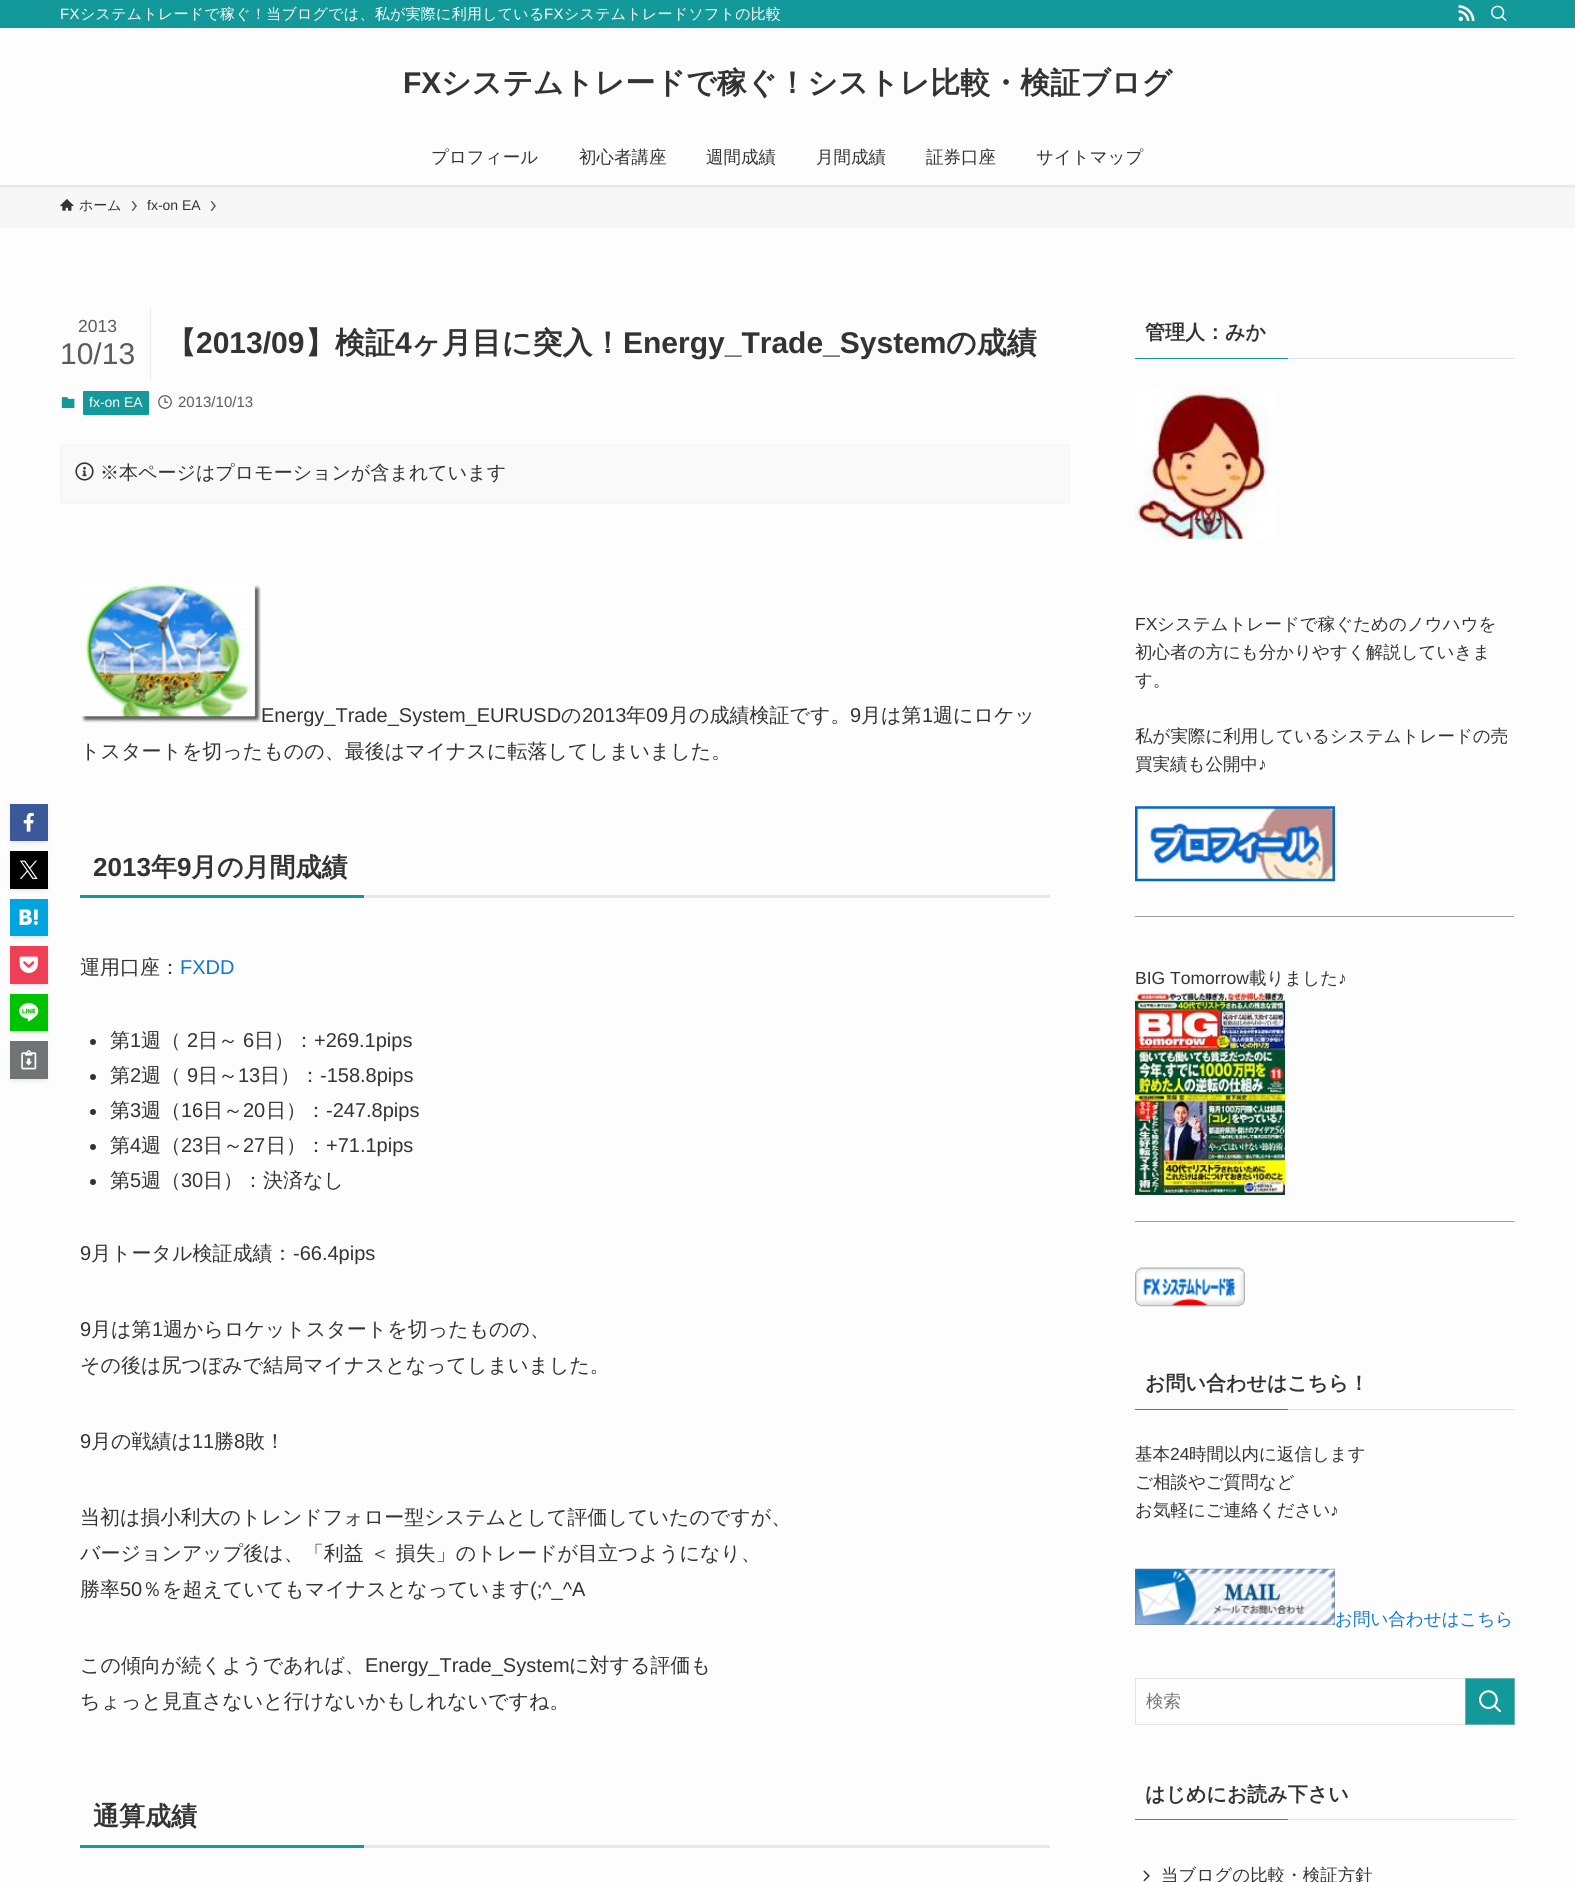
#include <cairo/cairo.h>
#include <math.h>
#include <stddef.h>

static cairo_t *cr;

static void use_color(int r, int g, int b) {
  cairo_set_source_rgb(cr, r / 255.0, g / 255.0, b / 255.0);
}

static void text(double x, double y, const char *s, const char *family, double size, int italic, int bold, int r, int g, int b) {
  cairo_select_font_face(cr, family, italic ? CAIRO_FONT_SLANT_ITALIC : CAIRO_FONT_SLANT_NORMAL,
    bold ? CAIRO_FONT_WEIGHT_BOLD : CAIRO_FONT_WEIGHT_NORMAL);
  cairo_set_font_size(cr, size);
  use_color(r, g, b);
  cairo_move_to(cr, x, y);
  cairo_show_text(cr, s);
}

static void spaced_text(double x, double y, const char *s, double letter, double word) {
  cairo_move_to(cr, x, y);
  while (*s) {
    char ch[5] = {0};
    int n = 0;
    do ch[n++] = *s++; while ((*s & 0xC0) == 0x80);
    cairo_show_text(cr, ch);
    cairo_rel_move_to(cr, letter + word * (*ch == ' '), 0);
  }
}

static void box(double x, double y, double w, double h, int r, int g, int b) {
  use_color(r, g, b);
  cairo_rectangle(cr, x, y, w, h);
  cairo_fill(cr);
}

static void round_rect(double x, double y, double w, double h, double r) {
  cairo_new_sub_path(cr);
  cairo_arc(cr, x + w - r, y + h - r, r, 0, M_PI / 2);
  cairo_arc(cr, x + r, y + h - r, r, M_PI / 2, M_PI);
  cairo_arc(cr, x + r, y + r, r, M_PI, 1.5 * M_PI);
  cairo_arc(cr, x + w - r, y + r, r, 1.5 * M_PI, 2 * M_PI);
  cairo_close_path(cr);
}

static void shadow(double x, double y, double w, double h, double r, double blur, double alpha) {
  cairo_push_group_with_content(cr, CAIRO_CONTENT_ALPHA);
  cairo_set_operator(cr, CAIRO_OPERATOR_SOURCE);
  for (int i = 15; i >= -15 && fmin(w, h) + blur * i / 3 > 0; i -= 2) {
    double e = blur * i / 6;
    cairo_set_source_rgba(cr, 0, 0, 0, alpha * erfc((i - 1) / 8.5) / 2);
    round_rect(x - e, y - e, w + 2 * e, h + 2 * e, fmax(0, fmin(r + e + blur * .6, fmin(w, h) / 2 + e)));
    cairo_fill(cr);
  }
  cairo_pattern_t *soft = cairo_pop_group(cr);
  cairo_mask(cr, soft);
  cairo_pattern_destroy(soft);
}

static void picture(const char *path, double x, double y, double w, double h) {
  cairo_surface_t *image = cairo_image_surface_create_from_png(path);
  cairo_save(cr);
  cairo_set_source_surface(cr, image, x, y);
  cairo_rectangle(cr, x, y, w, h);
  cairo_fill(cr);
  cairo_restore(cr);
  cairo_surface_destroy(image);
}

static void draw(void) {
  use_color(253, 253, 253);
  cairo_paint(cr);
  box(0, 185, 1575, 43, 247, 247, 247);
  cairo_save(cr);
  cairo_rectangle(cr, 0, 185, 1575, 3);
  cairo_clip(cr);
  use_color(0, 0, 0);
  shadow(0, 1, 1575, 185, 0, 2.5, 0.12);
  cairo_restore(cr);
  box(0, 0, 1575, 28, 19, 153, 154);
  picture("img_01.png", 1458, 5, 17, 16);
  picture("img_02.png", 1491, 5, 16, 16);
  picture("img_03.png", 60, 199, 14, 12);
  use_color(90, 90, 90);
  cairo_new_path(cr);
  cairo_move_to(cr, 133, 201);
  cairo_line_to(cr, 131.5, 201);
  cairo_line_to(cr, 135, 206);
  cairo_line_to(cr, 131.5, 211);
  cairo_line_to(cr, 133, 211);
  cairo_line_to(cr, 137, 206);
  cairo_close_path(cr);
  cairo_fill(cr);
  cairo_new_path(cr);
  cairo_move_to(cr, 212, 201);
  cairo_line_to(cr, 210.5, 201);
  cairo_line_to(cr, 214, 206);
  cairo_line_to(cr, 210.5, 211);
  cairo_line_to(cr, 212, 211);
  cairo_line_to(cr, 216, 206);
  cairo_close_path(cr);
  cairo_fill(cr);
  box(150, 308, 1, 72, 232, 232, 232);
  picture("img_04.png", 61, 397, 14, 11);
  use_color(19, 153, 154);
  round_rect(83, 391, 66, 24, 1);
  cairo_fill(cr);
  picture("img_05.png", 158, 395, 14, 14);
  use_color(249, 249, 249);
  round_rect(60.5, 444.5, 1009, 59, 0.5);
  cairo_fill_preserve(cr);
  use_color(245, 245, 245);
  cairo_set_line_width(cr, 1);
  cairo_stroke(cr);
  picture("img_06.png", 75, 462, 19, 19);
  use_color(0, 0, 0);
  shadow(15, 814, 28, 27, 0, 2.5, 0.1);
  shadow(10, 806, 38, 38, 0, 2.5, 0.05);
  box(10, 804, 38, 37, 59, 89, 152);
  picture("img_07.png", 23, 812, 11, 20);
  use_color(0, 0, 0);
  shadow(15, 861, 28, 28, 0, 2.5, 0.1);
  shadow(10, 854, 38, 37, 0, 2.5, 0.05);
  box(10, 851, 38, 38, 0, 0, 0);
  picture("img_08.png", 19, 860, 19, 19);
  use_color(0, 0, 0);
  shadow(15, 909, 28, 27, 0, 2.5, 0.1);
  shadow(10, 901, 38, 38, 0, 2.5, 0.05);
  box(10, 899, 38, 37, 0, 164, 222);
  picture("img_09.png", 19, 909, 19, 16);
  use_color(0, 0, 0);
  shadow(15, 956, 28, 28, 0, 2.5, 0.1);
  shadow(10, 949, 38, 37, 0, 2.5, 0.05);
  box(10, 946, 38, 38, 239, 63, 86);
  picture("img_10.png", 19, 956, 19, 17);
  use_color(0, 0, 0);
  shadow(15, 1004, 28, 27, 0, 2.5, 0.1);
  shadow(10, 996, 38, 38, 0, 2.5, 0.05);
  box(10, 994, 38, 37, 0, 195, 0);
  picture("img_11.png", 19, 1003, 20, 19);
  use_color(0, 0, 0);
  shadow(15, 1051, 28, 28, 0, 2.5, 0.1);
  shadow(10, 1044, 38, 37, 0, 2.5, 0.05);
  box(10, 1041, 38, 38, 113, 116, 117);
  picture("img_12.png", 21, 1050, 16, 20);
  picture("img_13.png", 81, 583, 180, 140);
  box(80, 895, 284, 3, 19, 153, 154);
  box(364, 895, 686, 3, 232, 232, 232);
  use_color(51, 51, 51);
  cairo_arc(cr, 93, 1042, 3, 0, 2 * M_PI);
  cairo_fill(cr);
  cairo_arc(cr, 93, 1077, 3, 0, 2 * M_PI);
  cairo_fill(cr);
  cairo_arc(cr, 93, 1112, 3, 0, 2 * M_PI);
  cairo_fill(cr);
  cairo_arc(cr, 93, 1147, 3, 0, 2 * M_PI);
  cairo_fill(cr);
  cairo_arc(cr, 93, 1182, 3, 0, 2 * M_PI);
  cairo_fill(cr);
  box(80, 1845, 284, 3, 19, 153, 154);
  box(364, 1845, 686, 3, 232, 232, 232);
  box(1135, 358, 153, 1, 19, 153, 154);
  box(1288, 358, 227, 1, 226, 226, 226);
  picture("img_14.png", 1135, 389, 140, 150);
  picture("img_15.png", 1135, 806, 200, 76);
  box(1135, 916, 380, 1, 159, 159, 159);
  box(1514, 916, 1, 1, 238, 238, 238);
  picture("img_16.png", 1135, 991, 150, 204);
  box(1135, 1221, 380, 1, 159, 159, 159);
  box(1514, 1221, 1, 1, 238, 238, 238);
  picture("img_17.png", 1135, 1267, 110, 40);
  box(1135, 1409, 153, 1, 19, 153, 154);
  box(1288, 1409, 227, 1, 226, 226, 226);
  picture("img_18.png", 1135, 1568, 200, 57);
  cairo_rectangle(cr, 1135.5, 1678.5, 379, 46);
  use_color(227, 227, 227);
  cairo_stroke(cr);
  use_color(19, 153, 154);
  cairo_rectangle(cr, 1465.5, 1678.5, 49, 46);
  cairo_fill_preserve(cr);
  use_color(109, 176, 177);
  cairo_stroke(cr);
  picture("img_19.png", 1479, 1690, 22, 23);
  box(1135, 1819, 153, 1, 19, 153, 154);
  box(1288, 1819, 227, 1, 226, 226, 226);
  picture("img_20.png", 1143, 1870, 7, 12);
  cairo_select_font_face(cr, "Liberation Sans", CAIRO_FONT_SLANT_NORMAL, CAIRO_FONT_WEIGHT_NORMAL);
  cairo_set_font_size(cr, 15);
  use_color(255, 255, 255);
  spaced_text(60, 19, "FX", 0.25, 0);
  cairo_select_font_face(cr, "WenQuanYi Zen Hei Medium", CAIRO_FONT_SLANT_NORMAL, CAIRO_FONT_WEIGHT_NORMAL);
  spaced_text(80, 19, "システムトレードで稼ぐ！当ブログでは、私が実際に利用している", 0.25, 0);
  cairo_select_font_face(cr, "Liberation Sans", CAIRO_FONT_SLANT_NORMAL, CAIRO_FONT_WEIGHT_NORMAL);
  spaced_text(544, 19, "FX", 0.25, 0);
  cairo_select_font_face(cr, "WenQuanYi Zen Hei Medium", CAIRO_FONT_SLANT_NORMAL, CAIRO_FONT_WEIGHT_NORMAL);
  spaced_text(564, 19, "システムトレードソフトの比較", 0.25, 0);
  text(403, 93, "FX", "Liberation Sans", 30, 0, 1, 51, 51, 51);
  text(441, 93, "システムトレードで稼ぐ！シストレ比較・検証ブログ", "WenQuanYi Zen Hei", 30, 0, 1, 51, 51, 51);
  text(431, 163, "プロフィール", "WenQuanYi Zen Hei Medium", 17.5, 0, 0, 51, 51, 51);
  text(579, 163, "初心者講座", "WenQuanYi Zen Hei Medium", 17.5, 0, 0, 51, 51, 51);
  text(706, 163, "週間成績", "WenQuanYi Zen Hei Medium", 17.5, 0, 0, 51, 51, 51);
  text(816, 163, "月間成績", "WenQuanYi Zen Hei Medium", 17.5, 0, 0, 51, 51, 51);
  text(926, 163, "証券口座", "WenQuanYi Zen Hei Medium", 17.5, 0, 0, 51, 51, 51);
  text(1036, 163, "サイトマップ", "WenQuanYi Zen Hei Medium", 17.5, 0, 0, 51, 51, 51);
  text(79, 210, "ホーム", "WenQuanYi Zen Hei Medium", 14, 0, 0, 51, 51, 51);
  text(147, 210, "fx-on EA", "Liberation Sans", 14, 0, 0, 51, 51, 51);
  text(78, 332, "2013", "Liberation Sans", 17.5, 0, 0, 91, 91, 91);
  text(60, 364, "10/13", "Liberation Sans", 30, 0, 0, 91, 91, 91);
  text(166, 353, "【", "WenQuanYi Zen Hei", 30, 0, 1, 51, 51, 51);
  text(196, 353, "2013/09", "Liberation Sans", 30, 0, 1, 51, 51, 51);
  text(305, 353, "】検証", "WenQuanYi Zen Hei", 30, 0, 1, 51, 51, 51);
  text(395, 353, "4", "Liberation Sans", 30, 0, 1, 51, 51, 51);
  text(411, 353, "ヶ月目に突入！", "WenQuanYi Zen Hei", 30, 0, 1, 51, 51, 51);
  text(623, 353, "Energy_Trade_System", "Liberation Sans", 30, 0, 1, 51, 51, 51);
  text(946, 353, "の成績", "WenQuanYi Zen Hei", 30, 0, 1, 51, 51, 51);
  text(89, 407, "fx-on EA", "Liberation Sans", 14, 0, 0, 255, 255, 255);
  text(178, 407, "2013/10/13", "Liberation Sans", 15, 0, 0, 91, 91, 91);
  text(100, 479, "※本ページはプロモーションが含まれています", "WenQuanYi Zen Hei Medium", 19, 0, 0, 51, 51, 51);
  text(261, 722, "Energy_Trade_System_EURUSD", "Liberation Sans", 20, 0, 0, 51, 51, 51);
  text(561, 722, "の", "WenQuanYi Zen Hei Medium", 20, 0, 0, 51, 51, 51);
  text(582, 722, "2013", "Liberation Sans", 20, 0, 0, 51, 51, 51);
  text(626, 722, "年", "WenQuanYi Zen Hei Medium", 20, 0, 0, 51, 51, 51);
  text(646, 722, "09", "Liberation Sans", 20, 0, 0, 51, 51, 51);
  text(669, 722, "月の成績検証です。", "WenQuanYi Zen Hei Medium", 20, 0, 0, 51, 51, 51);
  text(850, 722, "9", "Liberation Sans", 20, 0, 0, 51, 51, 51);
  text(861, 722, "月は第", "WenQuanYi Zen Hei Medium", 20, 0, 0, 51, 51, 51);
  text(922, 722, "1", "Liberation Sans", 20, 0, 0, 51, 51, 51);
  text(933, 722, "週にロケッ", "WenQuanYi Zen Hei Medium", 20, 0, 0, 51, 51, 51);
  text(80, 758, "トスタートを切ったものの、最後はマイナスに転落してしまいました。", "WenQuanYi Zen Hei Medium", 20, 0, 0, 51, 51, 51);
  text(93, 876, "2013", "Liberation Sans", 26, 0, 1, 51, 51, 51);
  text(151, 876, "年", "WenQuanYi Zen Hei", 26, 0, 1, 51, 51, 51);
  text(177, 876, "9", "Liberation Sans", 26, 0, 1, 51, 51, 51);
  text(191, 876, "月の月間成績", "WenQuanYi Zen Hei", 26, 0, 1, 51, 51, 51);
  text(80, 974, "運用口座：", "WenQuanYi Zen Hei Medium", 20, 0, 0, 51, 51, 51);
  text(180, 974, "FXDD", "Liberation Sans", 20, 0, 0, 17, 118, 212);
  text(110, 1047, "第", "WenQuanYi Zen Hei Medium", 20, 0, 0, 51, 51, 51);
  text(130, 1047, "1", "Liberation Sans", 20, 0, 0, 51, 51, 51);
  text(141, 1047, "週（", "WenQuanYi Zen Hei Medium", 20, 0, 0, 51, 51, 51);
  text(187, 1047, "2", "Liberation Sans", 20, 0, 0, 51, 51, 51);
  text(198, 1047, "日～", "WenQuanYi Zen Hei Medium", 20, 0, 0, 51, 51, 51);
  text(243, 1047, "6", "Liberation Sans", 20, 0, 0, 51, 51, 51);
  text(254, 1047, "日）：", "WenQuanYi Zen Hei Medium", 20, 0, 0, 51, 51, 51);
  text(314, 1047, "+269.1pips", "Liberation Sans", 20, 0, 0, 51, 51, 51);
  text(110, 1082, "第", "WenQuanYi Zen Hei Medium", 20, 0, 0, 51, 51, 51);
  text(130, 1082, "2", "Liberation Sans", 20, 0, 0, 51, 51, 51);
  text(141, 1082, "週（", "WenQuanYi Zen Hei Medium", 20, 0, 0, 51, 51, 51);
  text(187, 1082, "9", "Liberation Sans", 20, 0, 0, 51, 51, 51);
  text(198, 1082, "日～", "WenQuanYi Zen Hei Medium", 20, 0, 0, 51, 51, 51);
  text(238, 1082, "13", "Liberation Sans", 20, 0, 0, 51, 51, 51);
  text(260, 1082, "日）：", "WenQuanYi Zen Hei Medium", 20, 0, 0, 51, 51, 51);
  text(320, 1082, "-158.8pips", "Liberation Sans", 20, 0, 0, 51, 51, 51);
  text(110, 1117, "第", "WenQuanYi Zen Hei Medium", 20, 0, 0, 51, 51, 51);
  text(130, 1117, "3", "Liberation Sans", 20, 0, 0, 51, 51, 51);
  text(141, 1117, "週（", "WenQuanYi Zen Hei Medium", 20, 0, 0, 51, 51, 51);
  text(181, 1117, "16", "Liberation Sans", 20, 0, 0, 51, 51, 51);
  text(203, 1117, "日～", "WenQuanYi Zen Hei Medium", 20, 0, 0, 51, 51, 51);
  text(243, 1117, "20", "Liberation Sans", 20, 0, 0, 51, 51, 51);
  text(266, 1117, "日）：", "WenQuanYi Zen Hei Medium", 20, 0, 0, 51, 51, 51);
  text(326, 1117, "-247.8pips", "Liberation Sans", 20, 0, 0, 51, 51, 51);
  text(110, 1152, "第", "WenQuanYi Zen Hei Medium", 20, 0, 0, 51, 51, 51);
  text(130, 1152, "4", "Liberation Sans", 20, 0, 0, 51, 51, 51);
  text(141, 1152, "週（", "WenQuanYi Zen Hei Medium", 20, 0, 0, 51, 51, 51);
  text(181, 1152, "23", "Liberation Sans", 20, 0, 0, 51, 51, 51);
  text(203, 1152, "日～", "WenQuanYi Zen Hei Medium", 20, 0, 0, 51, 51, 51);
  text(243, 1152, "27", "Liberation Sans", 20, 0, 0, 51, 51, 51);
  text(266, 1152, "日）：", "WenQuanYi Zen Hei Medium", 20, 0, 0, 51, 51, 51);
  text(326, 1152, "+71.1pips", "Liberation Sans", 20, 0, 0, 51, 51, 51);
  text(110, 1187, "第", "WenQuanYi Zen Hei Medium", 20, 0, 0, 51, 51, 51);
  text(130, 1187, "5", "Liberation Sans", 20, 0, 0, 51, 51, 51);
  text(141, 1187, "週（", "WenQuanYi Zen Hei Medium", 20, 0, 0, 51, 51, 51);
  text(181, 1187, "30", "Liberation Sans", 20, 0, 0, 51, 51, 51);
  text(203, 1187, "日）：決済なし", "WenQuanYi Zen Hei Medium", 20, 0, 0, 51, 51, 51);
  text(80, 1260, "9", "Liberation Sans", 20, 0, 0, 51, 51, 51);
  text(91, 1260, "月トータル検証成績：", "WenQuanYi Zen Hei Medium", 20, 0, 0, 51, 51, 51);
  text(293, 1260, "-66.4pips", "Liberation Sans", 20, 0, 0, 51, 51, 51);
  text(80, 1336, "9", "Liberation Sans", 20, 0, 0, 51, 51, 51);
  text(91, 1336, "月は第", "WenQuanYi Zen Hei Medium", 20, 0, 0, 51, 51, 51);
  text(152, 1336, "1", "Liberation Sans", 20, 0, 0, 51, 51, 51);
  text(163, 1336, "週からロケットスタートを切ったものの、", "WenQuanYi Zen Hei Medium", 20, 0, 0, 51, 51, 51);
  text(80, 1372, "その後は尻つぼみで結局マイナスとなってしまいました。", "WenQuanYi Zen Hei Medium", 20, 0, 0, 51, 51, 51);
  text(80, 1448, "9", "Liberation Sans", 20, 0, 0, 51, 51, 51);
  text(91, 1448, "月の戦績は", "WenQuanYi Zen Hei Medium", 20, 0, 0, 51, 51, 51);
  text(192, 1448, "11", "Liberation Sans", 20, 0, 0, 51, 51, 51);
  text(214, 1448, "勝", "WenQuanYi Zen Hei Medium", 20, 0, 0, 51, 51, 51);
  text(234, 1448, "8", "Liberation Sans", 20, 0, 0, 51, 51, 51);
  text(245, 1448, "敗！", "WenQuanYi Zen Hei Medium", 20, 0, 0, 51, 51, 51);
  text(80, 1524, "当初は損小利大のトレンドフォロー型システムとして評価していたのですが、", "WenQuanYi Zen Hei Medium", 20, 0, 0, 51, 51, 51);
  text(80, 1560, "バージョンアップ後は、「利益 ＜ 損失」のトレードが目立つようになり、", "WenQuanYi Zen Hei Medium", 20, 0, 0, 51, 51, 51);
  text(80, 1596, "勝率", "WenQuanYi Zen Hei Medium", 20, 0, 0, 51, 51, 51);
  text(120, 1596, "50", "Liberation Sans", 20, 0, 0, 51, 51, 51);
  text(142, 1596, "％を超えていてもマイナスとなっています", "WenQuanYi Zen Hei Medium", 20, 0, 0, 51, 51, 51);
  text(530, 1596, "(;^_^A", "Liberation Sans", 20, 0, 0, 51, 51, 51);
  text(80, 1672, "この傾向が続くようであれば、", "WenQuanYi Zen Hei Medium", 20, 0, 0, 51, 51, 51);
  text(365, 1672, "Energy_Trade_System", "Liberation Sans", 20, 0, 0, 51, 51, 51);
  text(569, 1672, "に対する評価も", "WenQuanYi Zen Hei Medium", 20, 0, 0, 51, 51, 51);
  text(80, 1708, "ちょっと見直さないと行けないかもしれないですね。", "WenQuanYi Zen Hei Medium", 20, 0, 0, 51, 51, 51);
  text(93, 1825, "通算成績", "WenQuanYi Zen Hei", 26, 0, 1, 51, 51, 51);
  text(1145, 339, "管理人：みか", "WenQuanYi Zen Hei", 20, 0, 1, 51, 51, 51);
  text(1135, 630, "FX", "Liberation Sans", 17.5, 0, 0, 51, 51, 51);
  text(1157, 630, "システムトレードで稼ぐためのノウハウを", "WenQuanYi Zen Hei Medium", 17.5, 0, 0, 51, 51, 51);
  text(1135, 658, "初心者の方にも分かりやすく解説していきま", "WenQuanYi Zen Hei Medium", 17.5, 0, 0, 51, 51, 51);
  text(1135, 686, "す。", "WenQuanYi Zen Hei Medium", 17.5, 0, 0, 51, 51, 51);
  text(1135, 742, "私が実際に利用しているシステムトレードの売", "WenQuanYi Zen Hei Medium", 17.5, 0, 0, 51, 51, 51);
  text(1135, 770, "買実績も公開中", "WenQuanYi Zen Hei Medium", 17.5, 0, 0, 51, 51, 51);
  text(1258, 770, "♪", "Liberation Sans", 17.5, 0, 0, 51, 51, 51);
  text(1135, 984, "BIG Tomorrow", "Liberation Sans", 17.5, 0, 0, 51, 51, 51);
  text(1249, 984, "載りました", "WenQuanYi Zen Hei Medium", 17.5, 0, 0, 51, 51, 51);
  text(1338, 984, "♪", "Liberation Sans", 17.5, 0, 0, 51, 51, 51);
  text(1145, 1390, "お問い合わせはこちら！", "WenQuanYi Zen Hei", 20, 0, 1, 51, 51, 51);
  text(1135, 1460, "基本", "WenQuanYi Zen Hei Medium", 17.5, 0, 0, 51, 51, 51);
  text(1170, 1460, "24", "Liberation Sans", 17.5, 0, 0, 51, 51, 51);
  text(1189, 1460, "時間以内に返信します", "WenQuanYi Zen Hei Medium", 17.5, 0, 0, 51, 51, 51);
  text(1135, 1488, "ご相談やご質問など", "WenQuanYi Zen Hei Medium", 17.5, 0, 0, 51, 51, 51);
  text(1135, 1516, "お気軽にご連絡ください", "WenQuanYi Zen Hei Medium", 17.5, 0, 0, 51, 51, 51);
  text(1330, 1516, "♪", "Liberation Sans", 17.5, 0, 0, 51, 51, 51);
  text(1335, 1625, "お問い合わせはこちら", "WenQuanYi Zen Hei Medium", 17.5, 0, 0, 17, 118, 212);
  text(1146, 1707, "検索", "WenQuanYi Zen Hei Medium", 17.5, 0, 0, 117, 117, 117);
  text(1145, 1801, "はじめにお読み下さい", "WenQuanYi Zen Hei", 20, 0, 1, 51, 51, 51);
  text(1161, 1881, "当ブログの比較・検証方針", "WenQuanYi Zen Hei Medium", 17.5, 0, 0, 51, 51, 51);
}

int main(void) {
  cairo_surface_t *surface = cairo_image_surface_create(CAIRO_FORMAT_RGB24, 1575, 1882);
  cr = cairo_create(surface);
  cairo_font_options_t *options = cairo_font_options_create();
  cairo_font_options_set_hint_metrics(options, CAIRO_HINT_METRICS_OFF);
  cairo_font_options_set_hint_style(options, CAIRO_HINT_STYLE_NONE);
  cairo_set_font_options(cr, options);
  cairo_set_miter_limit(cr, 4);
  draw();
  cairo_surface_write_to_png(surface, "out.png");
  cairo_font_options_destroy(options);
  cairo_destroy(cr);
  cairo_surface_destroy(surface);
  return 0;
}
